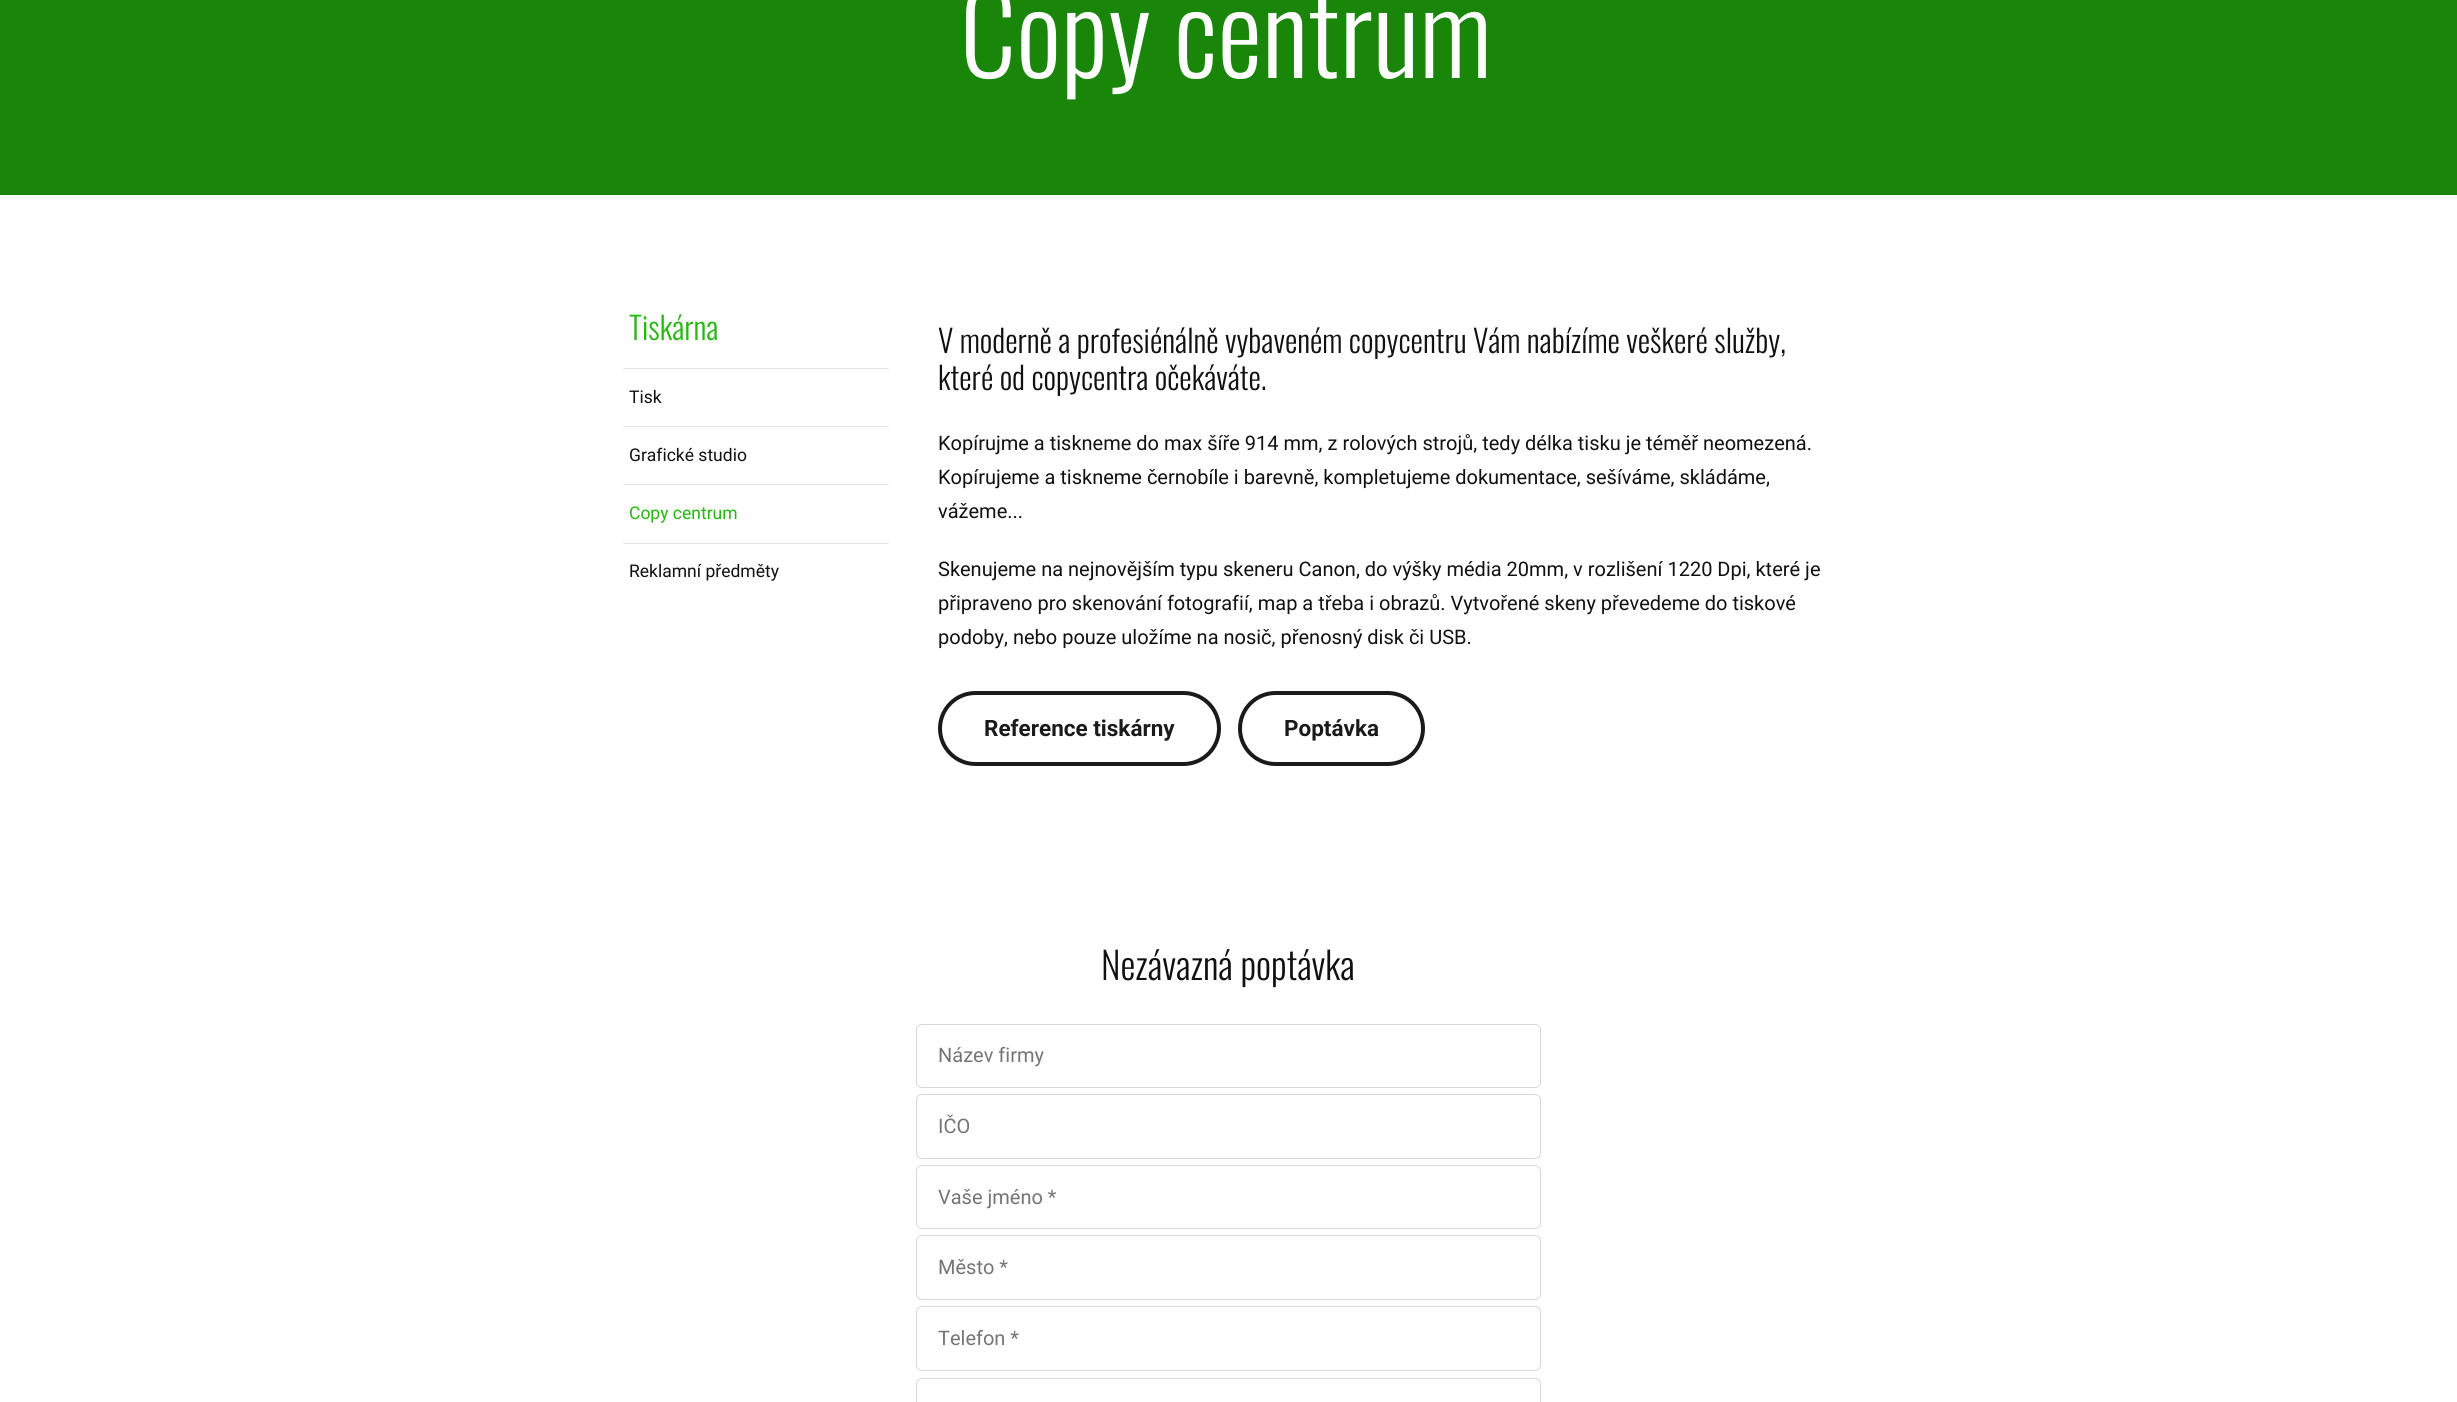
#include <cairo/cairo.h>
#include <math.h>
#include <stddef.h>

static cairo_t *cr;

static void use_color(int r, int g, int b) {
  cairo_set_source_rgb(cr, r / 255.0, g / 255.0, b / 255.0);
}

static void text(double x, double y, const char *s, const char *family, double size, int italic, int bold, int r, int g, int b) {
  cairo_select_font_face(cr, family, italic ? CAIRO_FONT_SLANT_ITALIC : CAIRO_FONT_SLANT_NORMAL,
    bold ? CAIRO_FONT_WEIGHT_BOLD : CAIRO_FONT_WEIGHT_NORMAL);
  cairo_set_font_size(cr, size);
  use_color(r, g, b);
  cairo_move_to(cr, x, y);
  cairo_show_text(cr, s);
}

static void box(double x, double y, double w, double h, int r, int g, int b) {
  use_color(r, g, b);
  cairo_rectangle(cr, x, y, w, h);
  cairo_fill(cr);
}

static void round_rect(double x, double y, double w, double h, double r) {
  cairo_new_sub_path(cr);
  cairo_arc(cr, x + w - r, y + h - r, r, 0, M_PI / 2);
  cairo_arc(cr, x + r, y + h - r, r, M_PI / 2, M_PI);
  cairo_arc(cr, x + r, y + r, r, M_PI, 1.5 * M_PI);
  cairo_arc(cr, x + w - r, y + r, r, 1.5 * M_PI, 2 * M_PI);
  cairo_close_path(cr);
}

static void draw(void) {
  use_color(255, 255, 255);
  cairo_paint(cr);
  box(0, 0, 2457, 195, 25, 134, 10);
  box(623, 368, 266, 1, 230, 230, 230);
  box(623, 426, 266, 1, 230, 230, 230);
  box(623, 484, 266, 1, 230, 230, 230);
  box(623, 543, 266, 1, 230, 230, 230);
  round_rect(940, 693, 279, 71, 35.5);
  use_color(26, 26, 26);
  cairo_set_line_width(cr, 4);
  cairo_stroke(cr);
  round_rect(1240, 693, 183, 71, 35.5);
  cairo_stroke(cr);
  round_rect(916.5, 1024.5, 624, 63, 5.5);
  use_color(216, 216, 216);
  cairo_set_line_width(cr, 1);
  cairo_stroke(cr);
  round_rect(916.5, 1094.5, 624, 64, 5.5);
  cairo_stroke(cr);
  round_rect(916.5, 1165.5, 624, 63, 5.5);
  cairo_stroke(cr);
  round_rect(916.5, 1235.5, 624, 64, 5.5);
  cairo_stroke(cr);
  round_rect(916.5, 1306.5, 624, 64, 5.5);
  cairo_stroke(cr);
  round_rect(916.5, 1378.5, 624, 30, 5.5);
  cairo_stroke(cr);
  text(960, 78, "Copy centrum", "Oswald Light", 112.5, 0, 0, 255, 255, 255);
  text(629, 340, "Tiskárna", "Oswald Light", 31.25, 0, 0, 34, 184, 14);
  text(629, 403, "Tisk", "Roboto", 17.5, 0, 0, 17, 17, 17);
  text(629, 461, "Grafické studio", "Roboto", 17.5, 0, 0, 17, 17, 17);
  text(629, 519, "Copy centrum", "Roboto", 17.5, 0, 0, 34, 184, 14);
  text(629, 577, "Reklamní předměty", "Roboto", 17.5, 0, 0, 17, 17, 17);
  text(938, 353, "V moderně a profesiénálně vybaveném copycentru Vám nabízíme veškeré služby,", "Oswald Light", 31.25, 0, 0, 17, 17, 17);
  text(938, 390, "které od copycentra očekáváte.", "Oswald Light", 31.25, 0, 0, 17, 17, 17);
  text(938, 450, "Kopírujme a tiskneme do max šíře 914 mm, z rolových strojů, tedy délka tisku je téměř neomezená.", "Roboto", 20, 0, 0, 17, 17, 17);
  text(938, 484, "Kopírujeme a tiskneme černobíle i barevně, kompletujeme dokumentace, sešíváme, skládáme,", "Roboto", 20, 0, 0, 17, 17, 17);
  text(938, 518, "vážeme...", "Roboto", 20, 0, 0, 17, 17, 17);
  text(938, 576, "Skenujeme na nejnovějším typu skeneru Canon, do výšky média 20mm, v rozlišení 1220 Dpi, které je", "Roboto", 20, 0, 0, 17, 17, 17);
  text(938, 610, "připraveno pro skenování fotografií, map a třeba i obrazů. Vytvořené skeny převedeme do tiskové", "Roboto", 20, 0, 0, 17, 17, 17);
  text(938, 644, "podoby, nebo pouze uložíme na nosič, přenosný disk či USB.", "Roboto", 20, 0, 0, 17, 17, 17);
  text(984, 736, "Reference tiskárny", "Roboto", 22.5, 0, 1, 26, 26, 26);
  text(1284, 736, "Poptávka", "Roboto", 22.5, 0, 1, 26, 26, 26);
  text(1101, 980, "Nezávazná poptávka", "Oswald Light", 37.5, 0, 0, 17, 17, 17);
  text(938, 1062, "Název firmy", "Roboto", 20, 0, 0, 117, 117, 117);
  text(938, 1133, "IČO", "Roboto", 20, 0, 0, 117, 117, 117);
  text(938, 1204, "Vaše jméno *", "Roboto", 20, 0, 0, 117, 117, 117);
  text(938, 1274, "Město *", "Roboto", 20, 0, 0, 117, 117, 117);
  text(938, 1345, "Telefon *", "Roboto", 20, 0, 0, 117, 117, 117);
}

int main(void) {
  cairo_surface_t *surface = cairo_image_surface_create(CAIRO_FORMAT_RGB24, 2457, 1402);
  cr = cairo_create(surface);
  cairo_font_options_t *options = cairo_font_options_create();
  cairo_font_options_set_hint_metrics(options, CAIRO_HINT_METRICS_OFF);
  cairo_font_options_set_hint_style(options, CAIRO_HINT_STYLE_NONE);
  cairo_set_font_options(cr, options);
  cairo_set_miter_limit(cr, 4);
  draw();
  cairo_surface_write_to_png(surface, "out.png");
  cairo_font_options_destroy(options);
  cairo_destroy(cr);
  cairo_surface_destroy(surface);
  return 0;
}
